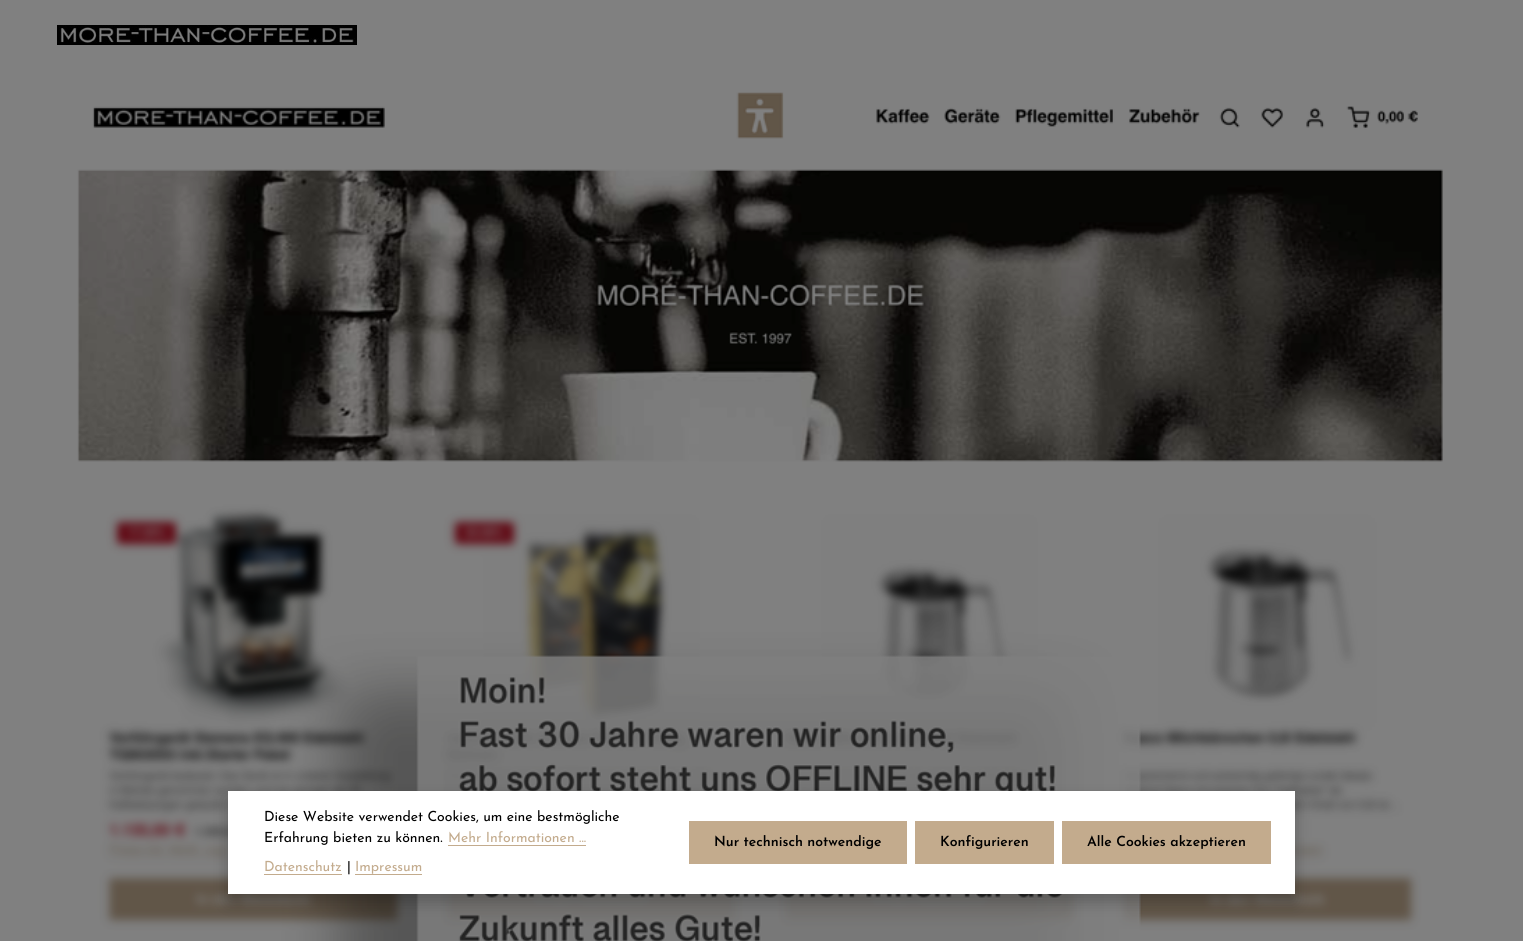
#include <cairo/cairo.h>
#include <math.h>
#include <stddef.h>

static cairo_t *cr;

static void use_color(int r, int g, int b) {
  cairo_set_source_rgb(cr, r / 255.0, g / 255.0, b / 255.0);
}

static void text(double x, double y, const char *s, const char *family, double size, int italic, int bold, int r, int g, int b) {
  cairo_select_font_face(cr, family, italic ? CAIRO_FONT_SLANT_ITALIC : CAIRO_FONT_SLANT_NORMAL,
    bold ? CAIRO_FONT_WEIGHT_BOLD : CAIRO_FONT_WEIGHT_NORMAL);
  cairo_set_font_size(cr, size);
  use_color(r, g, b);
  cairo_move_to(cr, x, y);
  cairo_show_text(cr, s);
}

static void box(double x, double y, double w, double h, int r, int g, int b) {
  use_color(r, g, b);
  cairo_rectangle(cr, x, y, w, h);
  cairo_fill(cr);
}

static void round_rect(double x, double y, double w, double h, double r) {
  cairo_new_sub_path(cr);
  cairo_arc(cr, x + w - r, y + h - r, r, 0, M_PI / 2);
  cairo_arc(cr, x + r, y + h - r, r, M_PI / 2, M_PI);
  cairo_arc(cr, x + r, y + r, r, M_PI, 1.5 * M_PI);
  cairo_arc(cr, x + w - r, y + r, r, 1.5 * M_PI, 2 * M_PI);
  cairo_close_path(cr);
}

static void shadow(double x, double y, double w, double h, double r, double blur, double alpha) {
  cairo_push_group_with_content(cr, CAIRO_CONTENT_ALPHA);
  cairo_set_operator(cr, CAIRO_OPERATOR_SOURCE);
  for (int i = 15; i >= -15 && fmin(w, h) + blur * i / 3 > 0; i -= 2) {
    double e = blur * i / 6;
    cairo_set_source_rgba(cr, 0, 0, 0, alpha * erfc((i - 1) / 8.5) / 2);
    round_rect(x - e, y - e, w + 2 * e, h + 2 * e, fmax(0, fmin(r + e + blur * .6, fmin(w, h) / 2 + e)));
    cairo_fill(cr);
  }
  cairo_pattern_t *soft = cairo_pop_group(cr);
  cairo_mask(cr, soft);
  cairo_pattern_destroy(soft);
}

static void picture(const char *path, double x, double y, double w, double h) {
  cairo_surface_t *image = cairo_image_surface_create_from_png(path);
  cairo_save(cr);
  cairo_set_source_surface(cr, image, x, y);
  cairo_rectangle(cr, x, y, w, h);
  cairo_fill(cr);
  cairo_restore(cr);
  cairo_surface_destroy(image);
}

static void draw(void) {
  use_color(128, 128, 128);
  cairo_paint(cr);
  picture("img_01.png", 57, 25, 300, 20);
  picture("img_02.png", 77, 92, 1366, 849);
  use_color(0, 0, 0);
  shadow(228, 799, 1067, 103, 0, 8, 0.25);
  box(228, 791, 1067, 103, 255, 255, 255);
  box(448, 845, 138, 1, 195, 171, 141);
  box(264, 874, 78, 1, 195, 171, 141);
  box(355, 874, 67, 1, 195, 171, 141);
  box(689, 821, 218, 43, 195, 171, 141);
  box(915, 821, 139, 43, 195, 171, 141);
  box(1062, 821, 209, 43, 195, 171, 141);
  text(264, 821, "Diese Website verwendet Cookies, um eine bestmögliche", "Josefin Sans", 14, 0, 0, 0, 0, 0);
  text(264, 842, "Erfahrung bieten zu können.", "Josefin Sans", 14, 0, 0, 0, 0, 0);
  text(448, 842, "Mehr Informationen ...", "Josefin Sans", 14, 0, 0, 195, 171, 141);
  text(264, 871, "Datenschutz", "Josefin Sans", 14, 0, 0, 195, 171, 141);
  text(347, 871, "|", "Josefin Sans", 14, 0, 0, 0, 0, 0);
  text(355, 871, "Impressum", "Josefin Sans", 14, 0, 0, 195, 171, 141);
  text(714, 846, "Nur technisch notwendige", "Josefin Sans SemiBold", 14, 0, 0, 0, 0, 0);
  text(940, 846, "Konfigurieren", "Josefin Sans SemiBold", 14, 0, 0, 0, 0, 0);
  text(1087, 846, "Alle Cookies akzeptieren", "Josefin Sans SemiBold", 14, 0, 0, 0, 0, 0);
}

int main(void) {
  cairo_surface_t *surface = cairo_image_surface_create(CAIRO_FORMAT_RGB24, 1523, 941);
  cr = cairo_create(surface);
  cairo_font_options_t *options = cairo_font_options_create();
  cairo_font_options_set_hint_metrics(options, CAIRO_HINT_METRICS_OFF);
  cairo_font_options_set_hint_style(options, CAIRO_HINT_STYLE_NONE);
  cairo_set_font_options(cr, options);
  cairo_set_miter_limit(cr, 4);
  draw();
  cairo_surface_write_to_png(surface, "out.png");
  cairo_font_options_destroy(options);
  cairo_destroy(cr);
  cairo_surface_destroy(surface);
  return 0;
}
